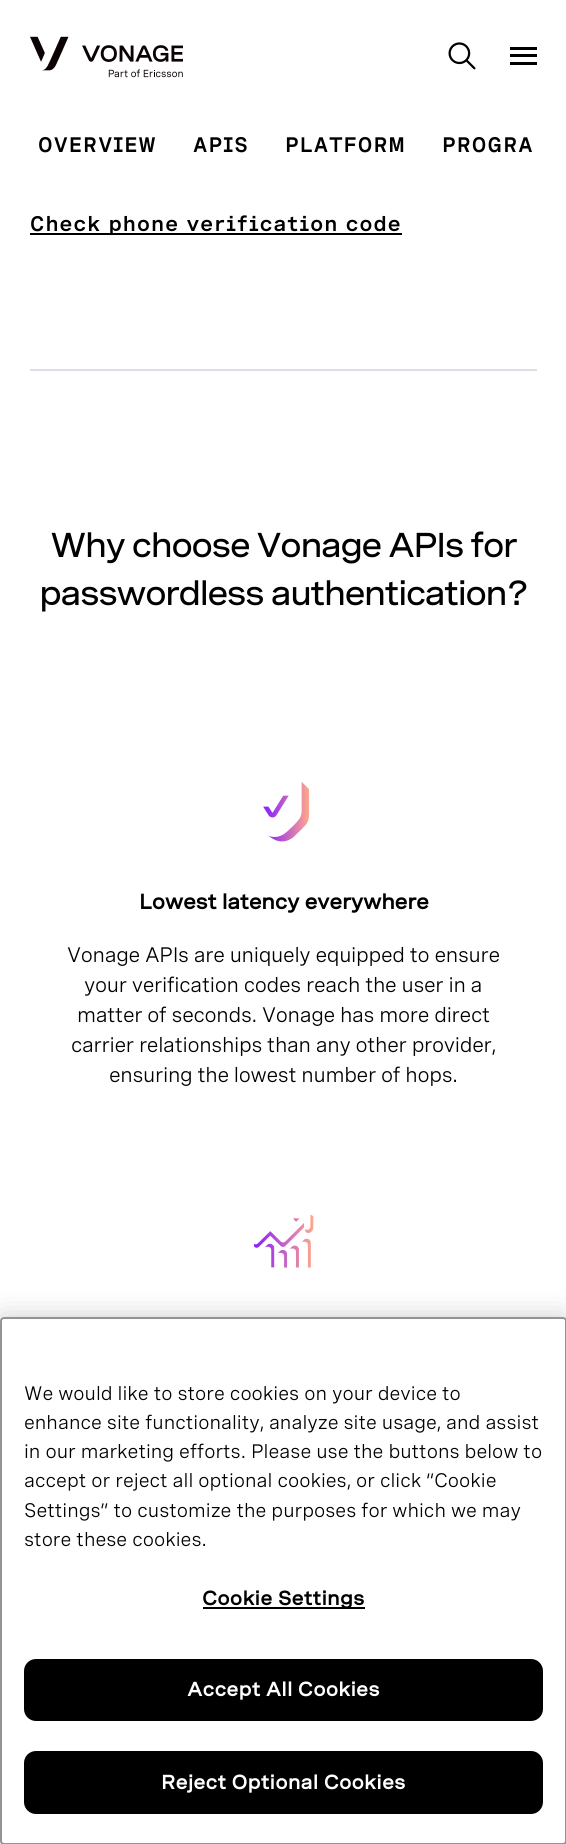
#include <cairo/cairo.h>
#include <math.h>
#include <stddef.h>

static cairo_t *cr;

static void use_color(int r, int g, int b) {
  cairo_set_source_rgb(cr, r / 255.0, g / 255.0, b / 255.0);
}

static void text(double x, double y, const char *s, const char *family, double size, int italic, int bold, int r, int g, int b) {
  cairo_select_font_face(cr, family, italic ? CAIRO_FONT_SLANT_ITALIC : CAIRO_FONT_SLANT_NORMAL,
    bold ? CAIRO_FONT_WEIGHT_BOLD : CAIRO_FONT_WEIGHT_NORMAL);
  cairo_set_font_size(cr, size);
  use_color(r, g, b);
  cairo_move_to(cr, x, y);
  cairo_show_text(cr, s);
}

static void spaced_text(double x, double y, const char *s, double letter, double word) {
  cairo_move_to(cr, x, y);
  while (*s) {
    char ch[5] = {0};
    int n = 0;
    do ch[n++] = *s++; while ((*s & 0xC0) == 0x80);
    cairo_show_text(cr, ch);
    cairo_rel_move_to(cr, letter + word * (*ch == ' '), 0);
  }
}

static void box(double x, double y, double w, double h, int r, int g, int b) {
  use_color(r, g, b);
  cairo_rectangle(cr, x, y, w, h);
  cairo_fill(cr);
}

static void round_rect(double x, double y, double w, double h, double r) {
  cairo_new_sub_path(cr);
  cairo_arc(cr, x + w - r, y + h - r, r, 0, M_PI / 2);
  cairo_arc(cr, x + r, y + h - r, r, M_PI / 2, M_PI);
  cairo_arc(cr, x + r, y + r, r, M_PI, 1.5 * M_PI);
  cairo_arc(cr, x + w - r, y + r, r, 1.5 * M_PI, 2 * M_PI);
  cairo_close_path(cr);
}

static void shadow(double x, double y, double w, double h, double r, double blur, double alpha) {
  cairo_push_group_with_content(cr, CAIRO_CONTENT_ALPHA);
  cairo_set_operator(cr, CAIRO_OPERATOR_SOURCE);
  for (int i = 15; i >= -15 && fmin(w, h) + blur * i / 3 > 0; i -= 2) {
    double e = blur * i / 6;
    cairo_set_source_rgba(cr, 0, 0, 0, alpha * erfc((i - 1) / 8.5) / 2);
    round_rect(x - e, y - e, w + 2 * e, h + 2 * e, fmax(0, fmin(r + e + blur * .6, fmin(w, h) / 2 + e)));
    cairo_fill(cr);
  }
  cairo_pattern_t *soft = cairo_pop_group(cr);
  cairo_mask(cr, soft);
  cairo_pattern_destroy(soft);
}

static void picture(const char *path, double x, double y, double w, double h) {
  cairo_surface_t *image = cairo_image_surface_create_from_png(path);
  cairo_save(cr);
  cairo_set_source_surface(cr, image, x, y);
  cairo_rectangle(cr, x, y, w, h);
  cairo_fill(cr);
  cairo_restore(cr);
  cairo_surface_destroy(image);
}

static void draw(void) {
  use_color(255, 255, 255);
  cairo_paint(cr);
  picture("img_01.png", 30, 36, 153, 42);
  picture("img_02.png", 448, 42, 28, 28);
  box(510, 47, 27, 3, 0, 0, 0);
  box(510, 54, 27, 3, 0, 0, 0);
  box(510, 62, 27, 3, 0, 0, 0);
  cairo_save(cr);
  cairo_rectangle(cr, 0, 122, 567, 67);
  cairo_clip(cr);
  use_color(255, 255, 255);
  shadow(524, 108, 30, 98, 0, 7.5, 1);
  cairo_restore(cr);
  box(30, 369, 507, 2, 220, 221, 230);
  box(30, 233, 372, 2, 0, 0, 0);
  picture("img_03.png", 263, 782, 47, 60);
  picture("img_04.png", 254, 1214, 60, 54);
  use_color(0, 0, 0);
  shadow(0, 1317, 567, 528, 4, 13.5, 0.2);
  use_color(255, 255, 255);
  round_rect(1, 1318, 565, 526, 3);
  cairo_fill_preserve(cr);
  use_color(148, 148, 148);
  cairo_stroke(cr);
  box(203, 1607, 162, 2, 0, 0, 0);
  round_rect(25, 1660, 517, 60, 11);
  cairo_fill_preserve(cr);
  cairo_stroke(cr);
  round_rect(25, 1752, 517, 61, 11);
  cairo_fill_preserve(cr);
  cairo_stroke(cr);
  cairo_select_font_face(cr, "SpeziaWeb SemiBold", CAIRO_FONT_SLANT_NORMAL, CAIRO_FONT_WEIGHT_NORMAL);
  cairo_set_font_size(cr, 21);
  spaced_text(38, 152, "OVERVIEW", 1.1, 0);
  spaced_text(193, 152, "APIS", 1.1, 0);
  spaced_text(285, 152, "PLATFORM", 1.1, 0);
  spaced_text(442, 152, "PROGRA", 1.1, 0);
  spaced_text(30, 231, "Check phone verification code", 1.1, 0);
  cairo_select_font_face(cr, "SpeziaWeb Medium", CAIRO_FONT_SLANT_NORMAL, CAIRO_FONT_WEIGHT_NORMAL);
  cairo_set_font_size(cr, 34.5);
  spaced_text(50, 557, "Why choose Vonage APIs for", -1.8, 0);
  spaced_text(39, 605, "passwordless authentication?", -1.8, 0);
  cairo_select_font_face(cr, "SpeziaWeb", CAIRO_FONT_SLANT_NORMAL, CAIRO_FONT_WEIGHT_BOLD);
  cairo_set_font_size(cr, 21);
  spaced_text(139, 909, "Lowest latency everywhere", -0.3, 0);
  cairo_select_font_face(cr, "SpeziaWeb", CAIRO_FONT_SLANT_NORMAL, CAIRO_FONT_WEIGHT_NORMAL);
  spaced_text(67, 962, "Vonage APIs are uniquely equipped to ensure", -0.3, 0);
  spaced_text(84, 992, "your verification codes reach the user in a", -0.3, 0);
  spaced_text(77, 1022, "matter of seconds. Vonage has more direct", -0.3, 0);
  spaced_text(71, 1052, "carrier relationships than any other provider,", -0.3, 0);
  spaced_text(109, 1082, "ensuring the lowest number of hops.", -0.3, 0);
  text(24, 1400, "We would like to store cookies on your device to", "SpeziaWeb", 19.5, 0, 0, 0, 0, 0);
  text(24, 1429, "enhance site functionality, analyze site usage, and assist", "SpeziaWeb", 19.5, 0, 0, 0, 0, 0);
  text(24, 1458, "in our marketing efforts. Please use the buttons below to", "SpeziaWeb", 19.5, 0, 0, 0, 0, 0);
  text(24, 1487, "accept or reject all optional cookies, or click “Cookie", "SpeziaWeb", 19.5, 0, 0, 0, 0, 0);
  text(24, 1517, "Settings” to customize the purposes for which we may", "SpeziaWeb", 19.5, 0, 0, 0, 0, 0);
  text(24, 1546, "store these cookies.", "SpeziaWeb", 19.5, 0, 0, 0, 0, 0);
  cairo_select_font_face(cr, "SpeziaWeb", CAIRO_FONT_SLANT_NORMAL, CAIRO_FONT_WEIGHT_BOLD);
  spaced_text(202, 1605, "Cookie Settings", 0.2, 0);
  use_color(255, 255, 255);
  spaced_text(187, 1696, "Accept All Cookies", 0.2, 0);
  spaced_text(161, 1789, "Reject Optional Cookies", 0.2, 0);
}

int main(void) {
  cairo_surface_t *surface = cairo_image_surface_create(CAIRO_FORMAT_RGB24, 566, 1844);
  cr = cairo_create(surface);
  cairo_font_options_t *options = cairo_font_options_create();
  cairo_font_options_set_hint_metrics(options, CAIRO_HINT_METRICS_OFF);
  cairo_font_options_set_hint_style(options, CAIRO_HINT_STYLE_NONE);
  cairo_set_font_options(cr, options);
  cairo_set_miter_limit(cr, 4);
  draw();
  cairo_surface_write_to_png(surface, "out.png");
  cairo_font_options_destroy(options);
  cairo_destroy(cr);
  cairo_surface_destroy(surface);
  return 0;
}
